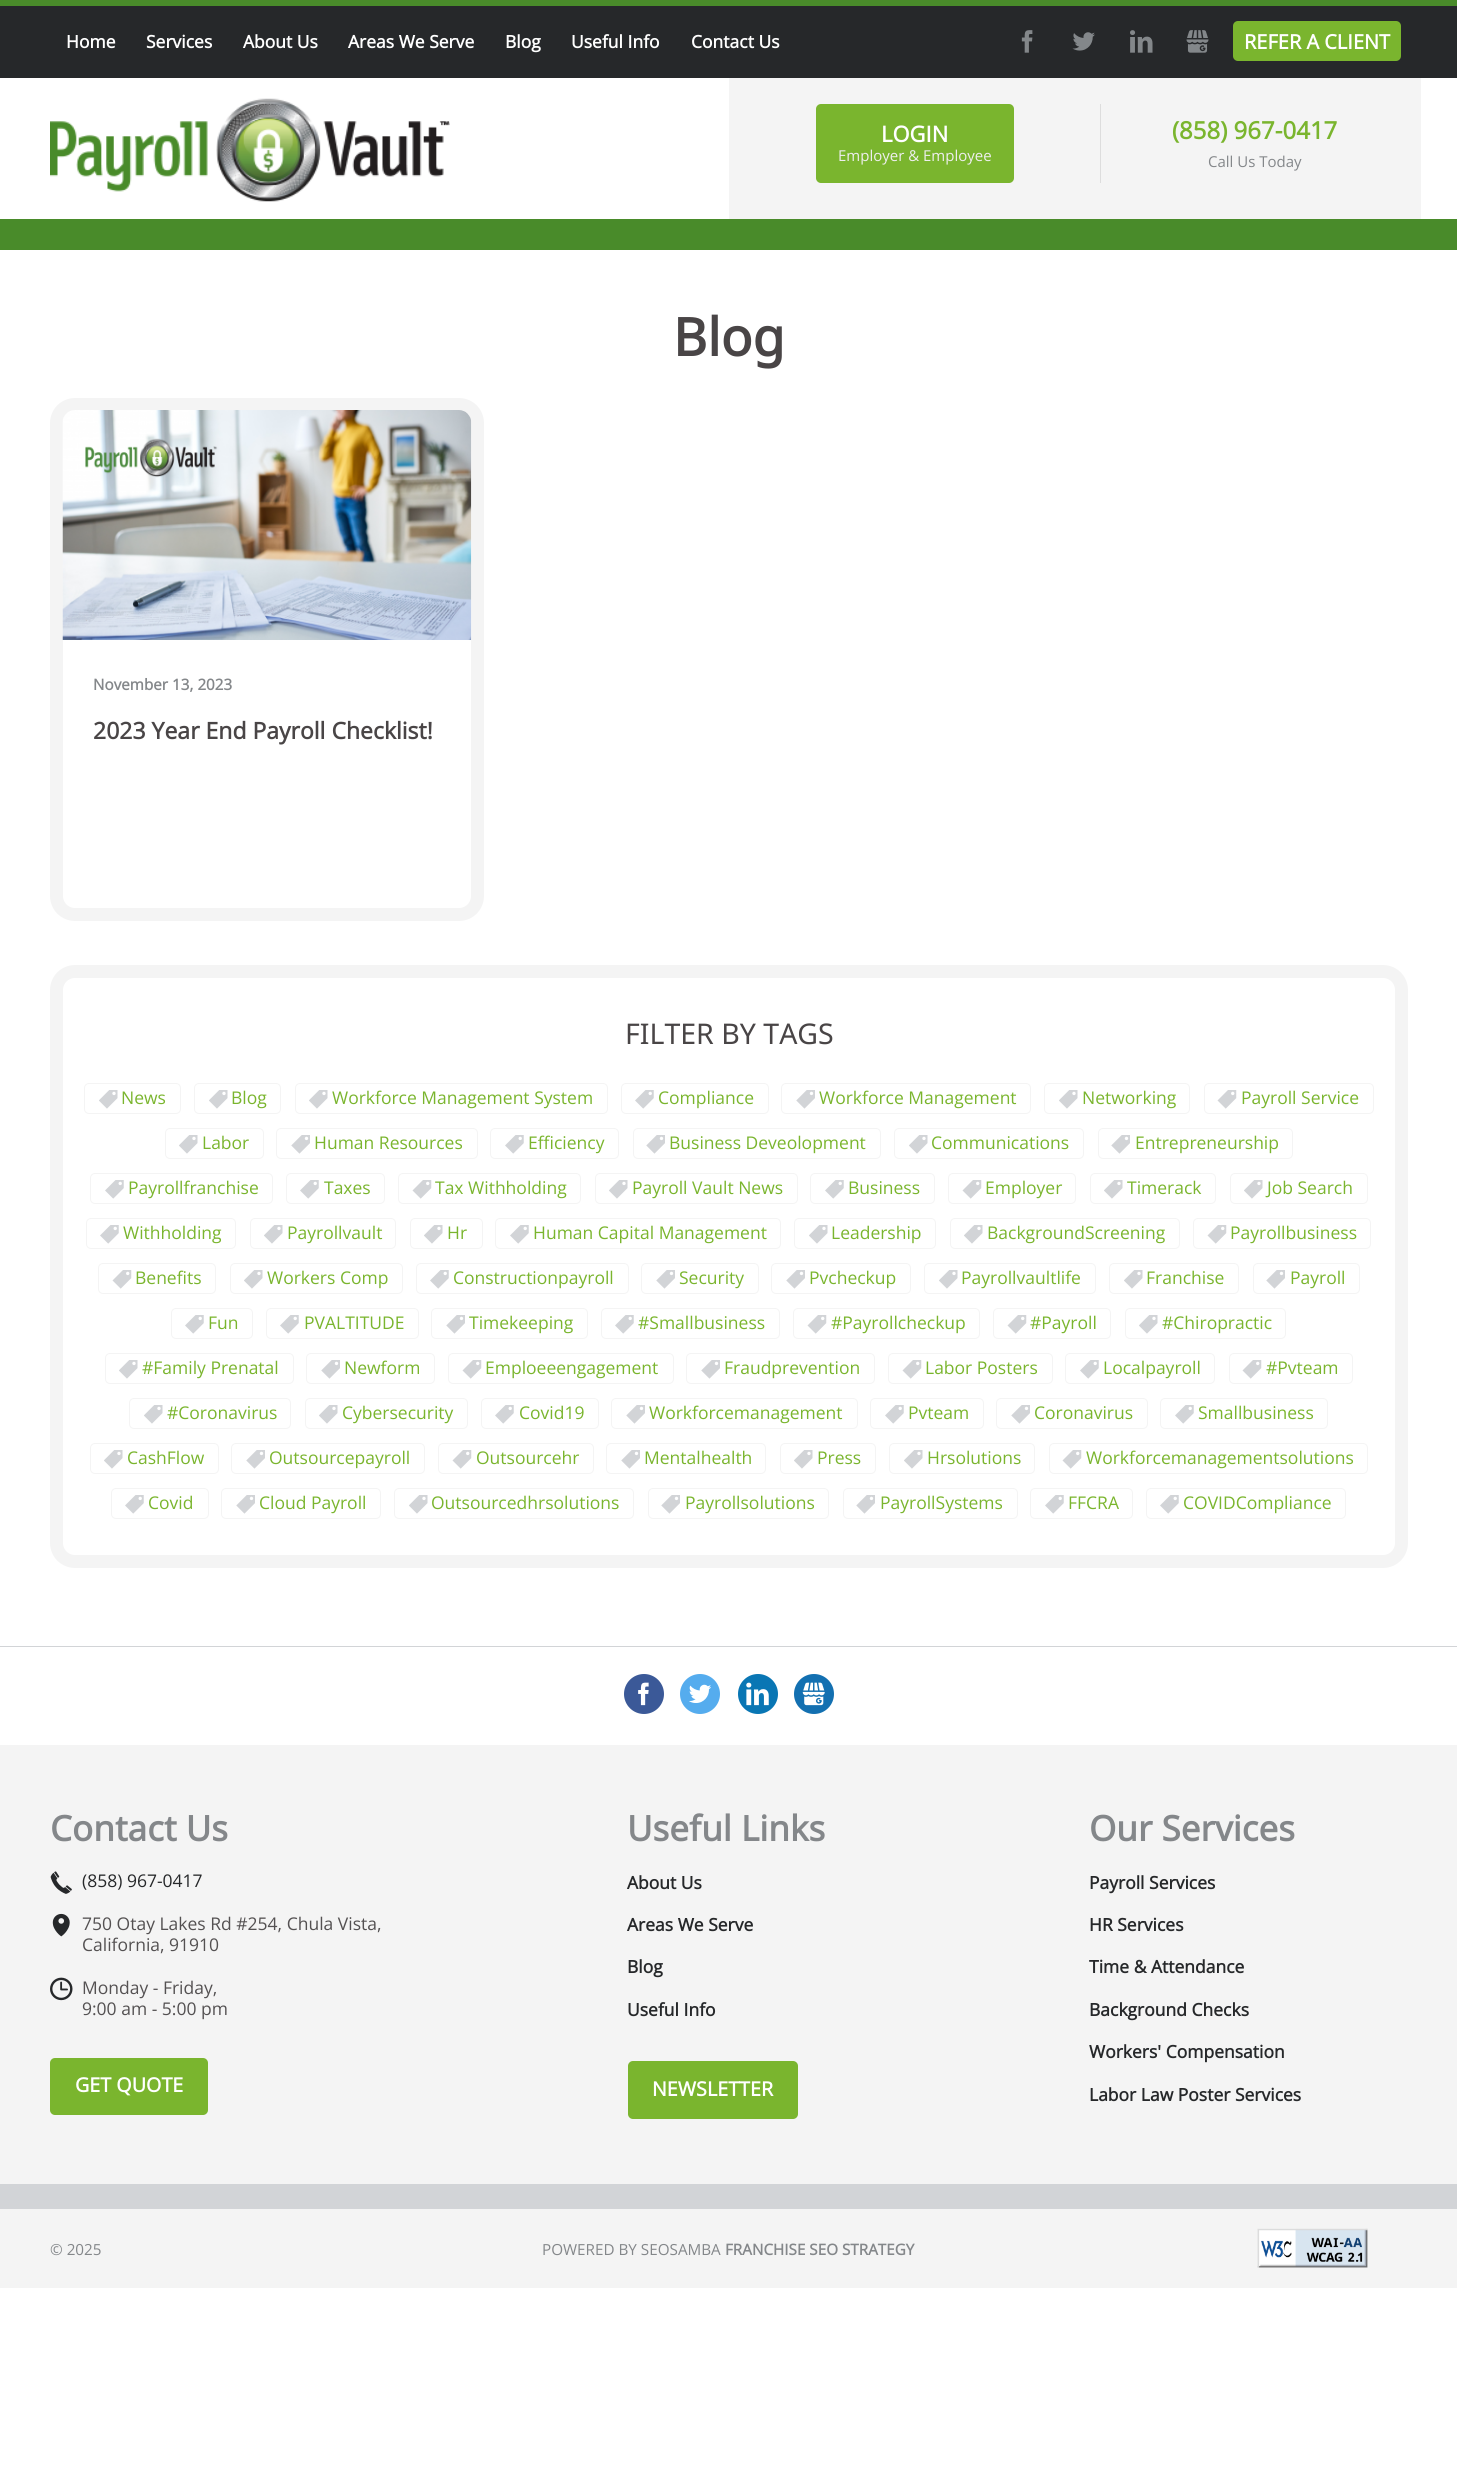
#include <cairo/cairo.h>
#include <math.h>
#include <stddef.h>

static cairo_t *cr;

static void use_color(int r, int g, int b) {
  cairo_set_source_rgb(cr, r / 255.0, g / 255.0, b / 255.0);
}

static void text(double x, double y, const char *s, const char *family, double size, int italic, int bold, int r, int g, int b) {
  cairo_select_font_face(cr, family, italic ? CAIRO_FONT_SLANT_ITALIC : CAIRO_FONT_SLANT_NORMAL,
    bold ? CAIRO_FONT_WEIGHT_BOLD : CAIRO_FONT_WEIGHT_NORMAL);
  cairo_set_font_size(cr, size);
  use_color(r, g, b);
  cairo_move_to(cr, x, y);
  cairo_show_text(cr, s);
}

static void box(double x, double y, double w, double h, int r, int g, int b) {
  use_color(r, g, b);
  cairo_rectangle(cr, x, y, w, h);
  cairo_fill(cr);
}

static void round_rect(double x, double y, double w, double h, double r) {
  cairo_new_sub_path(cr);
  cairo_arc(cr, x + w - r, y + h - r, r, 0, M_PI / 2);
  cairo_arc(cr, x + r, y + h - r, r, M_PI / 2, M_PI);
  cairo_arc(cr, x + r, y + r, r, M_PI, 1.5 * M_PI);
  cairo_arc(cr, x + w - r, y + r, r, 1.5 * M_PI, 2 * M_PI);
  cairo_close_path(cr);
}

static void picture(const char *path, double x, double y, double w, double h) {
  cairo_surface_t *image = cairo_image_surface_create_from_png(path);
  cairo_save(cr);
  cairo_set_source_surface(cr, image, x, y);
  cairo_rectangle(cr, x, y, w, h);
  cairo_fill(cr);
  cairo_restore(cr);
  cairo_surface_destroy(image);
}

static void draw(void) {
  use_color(255, 255, 255);
  cairo_paint(cr);
  box(0, 219, 1457, 31, 73, 139, 42);
  box(0, 6, 1457, 72, 38, 40, 42);
  box(0, 0, 1457, 6, 73, 139, 42);
  picture("img_01.png", 1021, 30, 12, 23);
  picture("img_02.png", 1072, 32, 23, 19);
  picture("img_03.png", 1130, 30, 23, 23);
  picture("img_04.png", 1186, 30, 23, 23);
  use_color(122, 181, 46);
  round_rect(1233, 21, 168, 40, 5);
  cairo_fill(cr);
  picture("img_05.png", 50, 98, 400, 104);
  box(729, 78, 692, 141, 244, 244, 244);
  box(1100, 104, 1, 79, 221, 221, 221);
  use_color(122, 181, 46);
  round_rect(816, 104, 198, 79, 5);
  cairo_fill(cr);
  round_rect(56.5, 404.5, 421, 510, 18.5);
  use_color(244, 244, 244);
  cairo_set_line_width(cr, 13);
  cairo_stroke(cr);
  picture("img_06.png", 62, 410, 410, 230);
  round_rect(56.5, 971.5, 1345, 590, 18.5);
  cairo_stroke(cr);
  round_rect(84.5, 1083.5, 96, 30, 4.5);
  cairo_set_line_width(cr, 1);
  cairo_stroke(cr);
  picture("img_07.png", 99, 1090, 19, 19);
  round_rect(194.5, 1083.5, 86, 30, 4.5);
  cairo_stroke(cr);
  picture("img_07.png", 209, 1090, 19, 19);
  round_rect(295.5, 1083.5, 312, 30, 4.5);
  cairo_stroke(cr);
  picture("img_07.png", 309, 1090, 19, 19);
  round_rect(621.5, 1083.5, 147, 30, 4.5);
  cairo_stroke(cr);
  picture("img_08.png", 635, 1090, 19, 19);
  round_rect(781.5, 1083.5, 249, 30, 4.5);
  cairo_stroke(cr);
  picture("img_09.png", 796, 1090, 19, 19);
  round_rect(1044.5, 1083.5, 145, 30, 4.5);
  cairo_stroke(cr);
  picture("img_07.png", 1059, 1090, 19, 19);
  round_rect(1204.5, 1083.5, 169, 30, 4.5);
  cairo_stroke(cr);
  picture("img_10.png", 1217, 1090, 20, 19);
  round_rect(165.5, 1128.5, 98, 30, 4.5);
  cairo_stroke(cr);
  picture("img_07.png", 179, 1135, 19, 19);
  round_rect(276.5, 1128.5, 201, 30, 4.5);
  cairo_stroke(cr);
  picture("img_09.png", 291, 1135, 19, 19);
  round_rect(490.5, 1128.5, 128, 30, 4.5);
  cairo_stroke(cr);
  picture("img_08.png", 505, 1135, 19, 19);
  round_rect(633.5, 1128.5, 247, 30, 4.5);
  cairo_stroke(cr);
  picture("img_09.png", 646, 1135, 19, 19);
  round_rect(894.5, 1128.5, 189, 30, 4.5);
  cairo_stroke(cr);
  picture("img_07.png", 909, 1135, 19, 19);
  round_rect(1098.5, 1128.5, 194, 30, 4.5);
  cairo_stroke(cr);
  picture("img_09.png", 1111, 1135, 19, 19);
  round_rect(90.5, 1173.5, 182, 30, 4.5);
  cairo_stroke(cr);
  picture("img_08.png", 105, 1180, 19, 19);
  round_rect(286.5, 1173.5, 98, 30, 4.5);
  cairo_stroke(cr);
  picture("img_08.png", 300, 1180, 19, 19);
  round_rect(398.5, 1173.5, 182, 30, 4.5);
  cairo_stroke(cr);
  picture("img_10.png", 412, 1180, 20, 19);
  round_rect(595.5, 1173.5, 202, 30, 4.5);
  cairo_stroke(cr);
  picture("img_07.png", 609, 1180, 19, 19);
  round_rect(810.5, 1173.5, 124, 30, 4.5);
  cairo_stroke(cr);
  picture("img_08.png", 825, 1180, 19, 19);
  round_rect(948.5, 1173.5, 127, 30, 4.5);
  cairo_stroke(cr);
  picture("img_10.png", 962, 1180, 20, 19);
  round_rect(1090.5, 1173.5, 125, 30, 4.5);
  cairo_stroke(cr);
  picture("img_07.png", 1104, 1180, 19, 19);
  round_rect(1230.5, 1173.5, 137, 30, 4.5);
  cairo_stroke(cr);
  picture("img_07.png", 1244, 1180, 19, 19);
  round_rect(86.5, 1218.5, 149, 30, 4.5);
  cairo_stroke(cr);
  picture("img_08.png", 100, 1225, 19, 19);
  round_rect(250.5, 1218.5, 145, 30, 4.5);
  cairo_stroke(cr);
  picture("img_07.png", 264, 1225, 19, 19);
  round_rect(410.5, 1218.5, 72, 30, 4.5);
  cairo_stroke(cr);
  picture("img_07.png", 424, 1225, 19, 19);
  round_rect(495.5, 1218.5, 285, 30, 4.5);
  cairo_stroke(cr);
  picture("img_08.png", 510, 1225, 19, 19);
  round_rect(794.5, 1218.5, 141, 30, 4.5);
  cairo_stroke(cr);
  picture("img_07.png", 809, 1225, 19, 19);
  round_rect(950.5, 1218.5, 229, 30, 4.5);
  cairo_stroke(cr);
  picture("img_07.png", 964, 1225, 19, 19);
  round_rect(1193.5, 1218.5, 177, 30, 4.5);
  cairo_stroke(cr);
  picture("img_10.png", 1207, 1225, 20, 19);
  round_rect(98.5, 1263.5, 117, 30, 4.5);
  cairo_stroke(cr);
  picture("img_10.png", 112, 1270, 20, 19);
  round_rect(230.5, 1263.5, 172, 30, 4.5);
  cairo_stroke(cr);
  picture("img_07.png", 244, 1270, 19, 19);
  round_rect(416.5, 1263.5, 212, 30, 4.5);
  cairo_stroke(cr);
  picture("img_08.png", 430, 1270, 19, 19);
  round_rect(641.5, 1263.5, 117, 30, 4.5);
  cairo_stroke(cr);
  picture("img_09.png", 656, 1270, 19, 19);
  round_rect(771.5, 1263.5, 139, 30, 4.5);
  cairo_stroke(cr);
  picture("img_09.png", 786, 1270, 19, 19);
  round_rect(924.5, 1263.5, 171, 30, 4.5);
  cairo_stroke(cr);
  picture("img_07.png", 939, 1270, 19, 19);
  round_rect(1109.5, 1263.5, 129, 30, 4.5);
  cairo_stroke(cr);
  picture("img_07.png", 1124, 1270, 19, 19);
  round_rect(1253.5, 1263.5, 106, 30, 4.5);
  cairo_stroke(cr);
  picture("img_09.png", 1266, 1270, 19, 19);
  round_rect(171.5, 1308.5, 81, 30, 4.5);
  cairo_stroke(cr);
  picture("img_08.png", 185, 1315, 19, 19);
  round_rect(266.5, 1308.5, 152, 30, 4.5);
  cairo_stroke(cr);
  picture("img_08.png", 280, 1315, 19, 19);
  round_rect(431.5, 1308.5, 156, 30, 4.5);
  cairo_stroke(cr);
  picture("img_09.png", 446, 1315, 19, 19);
  round_rect(601.5, 1308.5, 178, 30, 4.5);
  cairo_stroke(cr);
  picture("img_08.png", 615, 1315, 19, 19);
  round_rect(793.5, 1308.5, 186, 30, 4.5);
  cairo_stroke(cr);
  picture("img_10.png", 807, 1315, 20, 19);
  round_rect(993.5, 1308.5, 117, 30, 4.5);
  cairo_stroke(cr);
  picture("img_10.png", 1007, 1315, 20, 19);
  round_rect(1125.5, 1308.5, 160, 30, 4.5);
  cairo_stroke(cr);
  picture("img_07.png", 1139, 1315, 19, 19);
  round_rect(105.5, 1353.5, 188, 30, 4.5);
  cairo_stroke(cr);
  picture("img_07.png", 119, 1360, 19, 19);
  round_rect(306.5, 1353.5, 128, 30, 4.5);
  cairo_stroke(cr);
  picture("img_09.png", 321, 1360, 19, 19);
  round_rect(448.5, 1353.5, 225, 30, 4.5);
  cairo_stroke(cr);
  picture("img_10.png", 462, 1360, 20, 19);
  round_rect(686.5, 1353.5, 188, 30, 4.5);
  cairo_stroke(cr);
  picture("img_09.png", 701, 1360, 19, 19);
  round_rect(888.5, 1353.5, 164, 30, 4.5);
  cairo_stroke(cr);
  picture("img_10.png", 902, 1360, 20, 19);
  round_rect(1065.5, 1353.5, 149, 30, 4.5);
  cairo_stroke(cr);
  picture("img_08.png", 1080, 1360, 19, 19);
  round_rect(1229.5, 1353.5, 123, 30, 4.5);
  cairo_stroke(cr);
  picture("img_10.png", 1242, 1360, 20, 19);
  round_rect(129.5, 1398.5, 161, 30, 4.5);
  cairo_stroke(cr);
  picture("img_07.png", 144, 1405, 19, 19);
  round_rect(305.5, 1398.5, 162, 30, 4.5);
  cairo_stroke(cr);
  picture("img_07.png", 319, 1405, 19, 19);
  round_rect(481.5, 1398.5, 117, 30, 4.5);
  cairo_stroke(cr);
  picture("img_08.png", 495, 1405, 19, 19);
  round_rect(611.5, 1398.5, 246, 30, 4.5);
  cairo_stroke(cr);
  picture("img_09.png", 626, 1405, 19, 19);
  round_rect(870.5, 1398.5, 113, 30, 4.5);
  cairo_stroke(cr);
  picture("img_08.png", 885, 1405, 19, 19);
  round_rect(996.5, 1398.5, 151, 30, 4.5);
  cairo_stroke(cr);
  picture("img_09.png", 1011, 1405, 19, 19);
  round_rect(1160.5, 1398.5, 167, 30, 4.5);
  cairo_stroke(cr);
  picture("img_08.png", 1175, 1405, 19, 19);
  round_rect(90.5, 1443.5, 128, 30, 4.5);
  cairo_stroke(cr);
  picture("img_07.png", 104, 1450, 19, 19);
  round_rect(231.5, 1443.5, 193, 30, 4.5);
  cairo_stroke(cr);
  picture("img_09.png", 246, 1450, 19, 19);
  round_rect(438.5, 1443.5, 155, 30, 4.5);
  cairo_stroke(cr);
  picture("img_10.png", 452, 1450, 20, 19);
  round_rect(606.5, 1443.5, 159, 30, 4.5);
  cairo_stroke(cr);
  picture("img_09.png", 621, 1450, 19, 19);
  round_rect(780.5, 1443.5, 95, 30, 4.5);
  cairo_stroke(cr);
  picture("img_07.png", 794, 1450, 19, 19);
  round_rect(889.5, 1443.5, 145, 30, 4.5);
  cairo_stroke(cr);
  picture("img_07.png", 904, 1450, 19, 19);
  round_rect(1049.5, 1443.5, 318, 30, 4.5);
  cairo_stroke(cr);
  picture("img_10.png", 1062, 1450, 20, 19);
  round_rect(111.5, 1488.5, 97, 30, 4.5);
  cairo_stroke(cr);
  picture("img_08.png", 125, 1495, 19, 19);
  round_rect(221.5, 1488.5, 159, 30, 4.5);
  cairo_stroke(cr);
  picture("img_09.png", 236, 1495, 19, 19);
  round_rect(394.5, 1488.5, 239, 30, 4.5);
  cairo_stroke(cr);
  picture("img_07.png", 409, 1495, 19, 19);
  round_rect(648.5, 1488.5, 180, 30, 4.5);
  cairo_stroke(cr);
  picture("img_09.png", 661, 1495, 19, 19);
  round_rect(843.5, 1488.5, 174, 30, 4.5);
  cairo_stroke(cr);
  picture("img_09.png", 856, 1495, 19, 19);
  round_rect(1030.5, 1488.5, 102, 30, 4.5);
  cairo_stroke(cr);
  picture("img_08.png", 1045, 1495, 19, 19);
  round_rect(1146.5, 1488.5, 199, 30, 4.5);
  cairo_stroke(cr);
  picture("img_08.png", 1160, 1495, 19, 19);
  box(0, 1646, 1457, 1, 210, 212, 215);
  use_color(59, 89, 152);
  cairo_arc(cr, 644, 1694, 20, 0, 2 * M_PI);
  cairo_fill(cr);
  picture("img_11.png", 638, 1682, 11, 24);
  use_color(85, 172, 238);
  cairo_arc(cr, 700, 1694, 20, 0, 2 * M_PI);
  cairo_fill(cr);
  picture("img_12.png", 689, 1684, 22, 19);
  use_color(9, 118, 180);
  cairo_arc(cr, 758, 1694, 20, 0, 2 * M_PI);
  cairo_fill(cr);
  picture("img_13.png", 746, 1682, 23, 24);
  use_color(19, 112, 177);
  cairo_arc(cr, 814, 1694, 20, 0, 2 * M_PI);
  cairo_fill(cr);
  picture("img_14.png", 802, 1682, 23, 24);
  box(0, 1745, 1457, 543, 244, 244, 244);
  picture("img_15.png", 50, 1871, 22, 23);
  picture("img_16.png", 52, 1913, 18, 24);
  picture("img_17.png", 50, 1977, 23, 24);
  use_color(122, 181, 46);
  round_rect(50, 2058, 158, 57, 5);
  cairo_fill(cr);
  round_rect(628, 2061, 170, 58, 5);
  cairo_fill(cr);
  box(0, 2184, 1457, 25, 210, 212, 215);
  picture("img_18.png", 1257, 2228, 111, 40);
  text(66, 48, "Home", "Open Sans", 17.5, 0, 1, 255, 255, 255);
  text(146, 48, "Services", "Open Sans", 17.5, 0, 1, 255, 255, 255);
  text(243, 48, "About Us", "Open Sans", 17.5, 0, 1, 255, 255, 255);
  text(348, 48, "Areas We Serve", "Open Sans", 17.5, 0, 1, 255, 255, 255);
  text(505, 48, "Blog", "Open Sans", 17.5, 0, 1, 255, 255, 255);
  text(571, 48, "Useful Info", "Open Sans", 17.5, 0, 1, 255, 255, 255);
  text(691, 48, "Contact Us", "Open Sans", 17.5, 0, 1, 255, 255, 255);
  text(1244, 49, "REFER A CLIENT", "Open Sans", 20, 0, 1, 255, 255, 255);
  text(881, 142, "LOGIN", "Open Sans", 22, 0, 1, 255, 255, 255);
  text(838, 161, "Employer & Employee", "Open Sans", 15, 0, 0, 238, 238, 238);
  text(1172, 139, "(858) 967-0417", "Open Sans", 24, 0, 1, 122, 181, 46);
  text(1208, 167, "Call Us Today", "Open Sans", 15, 0, 0, 132, 135, 138);
  text(673, 356, "Blog", "Noto Sans", 52.5, 0, 1, 73, 69, 70);
  text(93, 690, "November 13, 2023", "Open Sans", 15.25, 0, 1, 132, 135, 138);
  text(93, 739, "2023 Year End Payroll Checklist!", "Open Sans", 23, 0, 1, 73, 69, 70);
  text(625, 1044, "FILTER BY TAGS", "Noto Sans", 28.5, 0, 0, 73, 69, 70);
  text(121, 1104, "News", "Open Sans", 17.5, 0, 0, 122, 181, 46);
  text(231, 1104, "Blog", "Open Sans", 17.5, 0, 0, 122, 181, 46);
  text(332, 1104, "Workforce Management System", "Open Sans", 17.5, 0, 0, 122, 181, 46);
  text(658, 1104, "Compliance", "Open Sans", 17.5, 0, 0, 122, 181, 46);
  text(819, 1104, "Workforce Management", "Open Sans", 17.5, 0, 0, 122, 181, 46);
  text(1082, 1104, "Networking", "Open Sans", 17.5, 0, 0, 122, 181, 46);
  text(1241, 1104, "Payroll Service", "Open Sans", 17.5, 0, 0, 122, 181, 46);
  text(202, 1149, "Labor", "Open Sans", 17.5, 0, 0, 122, 181, 46);
  text(314, 1149, "Human Resources", "Open Sans", 17.5, 0, 0, 122, 181, 46);
  text(528, 1149, "Efficiency", "Open Sans", 17.5, 0, 0, 122, 181, 46);
  text(669, 1149, "Business Deveolopment", "Open Sans", 17.5, 0, 0, 122, 181, 46);
  text(931, 1149, "Communications", "Open Sans", 17.5, 0, 0, 122, 181, 46);
  text(1135, 1149, "Entrepreneurship", "Open Sans", 17.5, 0, 0, 122, 181, 46);
  text(128, 1194, "Payrollfranchise", "Open Sans", 17.5, 0, 0, 122, 181, 46);
  text(324, 1194, "Taxes", "Open Sans", 17.5, 0, 0, 122, 181, 46);
  text(435, 1194, "Tax Withholding", "Open Sans", 17.5, 0, 0, 122, 181, 46);
  text(632, 1194, "Payroll Vault News", "Open Sans", 17.5, 0, 0, 122, 181, 46);
  text(848, 1194, "Business", "Open Sans", 17.5, 0, 0, 122, 181, 46);
  text(985, 1194, "Employer", "Open Sans", 17.5, 0, 0, 122, 181, 46);
  text(1127, 1194, "Timerack", "Open Sans", 17.5, 0, 0, 122, 181, 46);
  text(1267, 1194, "Job Search", "Open Sans", 17.5, 0, 0, 122, 181, 46);
  text(123, 1239, "Withholding", "Open Sans", 17.5, 0, 0, 122, 181, 46);
  text(287, 1239, "Payrollvault", "Open Sans", 17.5, 0, 0, 122, 181, 46);
  text(447, 1239, "Hr", "Open Sans", 17.5, 0, 0, 122, 181, 46);
  text(533, 1239, "Human Capital Management", "Open Sans", 17.5, 0, 0, 122, 181, 46);
  text(831, 1239, "Leadership", "Open Sans", 17.5, 0, 0, 122, 181, 46);
  text(987, 1239, "BackgroundScreening", "Open Sans", 17.5, 0, 0, 122, 181, 46);
  text(1230, 1239, "Payrollbusiness", "Open Sans", 17.5, 0, 0, 122, 181, 46);
  text(135, 1284, "Benefits", "Open Sans", 17.5, 0, 0, 122, 181, 46);
  text(267, 1284, "Workers Comp", "Open Sans", 17.5, 0, 0, 122, 181, 46);
  text(453, 1284, "Constructionpayroll", "Open Sans", 17.5, 0, 0, 122, 181, 46);
  text(679, 1284, "Security", "Open Sans", 17.5, 0, 0, 122, 181, 46);
  text(809, 1284, "Pvcheckup", "Open Sans", 17.5, 0, 0, 122, 181, 46);
  text(961, 1284, "Payrollvaultlife", "Open Sans", 17.5, 0, 0, 122, 181, 46);
  text(1146, 1284, "Franchise", "Open Sans", 17.5, 0, 0, 122, 181, 46);
  text(1290, 1284, "Payroll", "Open Sans", 17.5, 0, 0, 122, 181, 46);
  text(208, 1329, "Fun", "Open Sans", 17.5, 0, 0, 122, 181, 46);
  text(304, 1329, "PVALTITUDE", "Open Sans", 17.5, 0, 0, 122, 181, 46);
  text(469, 1329, "Timekeeping", "Open Sans", 17.5, 0, 0, 122, 181, 46);
  text(638, 1329, "#Smallbusiness", "Open Sans", 17.5, 0, 0, 122, 181, 46);
  text(831, 1329, "#Payrollcheckup", "Open Sans", 17.5, 0, 0, 122, 181, 46);
  text(1030, 1329, "#Payroll", "Open Sans", 17.5, 0, 0, 122, 181, 46);
  text(1162, 1329, "#Chiropractic", "Open Sans", 17.5, 0, 0, 122, 181, 46);
  text(142, 1374, "#Family Prenatal", "Open Sans", 17.5, 0, 0, 122, 181, 46);
  text(344, 1374, "Newform", "Open Sans", 17.5, 0, 0, 122, 181, 46);
  text(485, 1374, "Emploeeengagement", "Open Sans", 17.5, 0, 0, 122, 181, 46);
  text(724, 1374, "Fraudprevention", "Open Sans", 17.5, 0, 0, 122, 181, 46);
  text(925, 1374, "Labor Posters", "Open Sans", 17.5, 0, 0, 122, 181, 46);
  text(1103, 1374, "Localpayroll", "Open Sans", 17.5, 0, 0, 122, 181, 46);
  text(1266, 1374, "#Pvteam", "Open Sans", 17.5, 0, 0, 122, 181, 46);
  text(167, 1419, "#Coronavirus", "Open Sans", 17.5, 0, 0, 122, 181, 46);
  text(342, 1419, "Cybersecurity", "Open Sans", 17.5, 0, 0, 122, 181, 46);
  text(519, 1419, "Covid19", "Open Sans", 17.5, 0, 0, 122, 181, 46);
  text(649, 1419, "Workforcemanagement", "Open Sans", 17.5, 0, 0, 122, 181, 46);
  text(908, 1419, "Pvteam", "Open Sans", 17.5, 0, 0, 122, 181, 46);
  text(1034, 1419, "Coronavirus", "Open Sans", 17.5, 0, 0, 122, 181, 46);
  text(1198, 1419, "Smallbusiness", "Open Sans", 17.5, 0, 0, 122, 181, 46);
  text(127, 1464, "CashFlow", "Open Sans", 17.5, 0, 0, 122, 181, 46);
  text(269, 1464, "Outsourcepayroll", "Open Sans", 17.5, 0, 0, 122, 181, 46);
  text(476, 1464, "Outsourcehr", "Open Sans", 17.5, 0, 0, 122, 181, 46);
  text(644, 1464, "Mentalhealth", "Open Sans", 17.5, 0, 0, 122, 181, 46);
  text(817, 1464, "Press", "Open Sans", 17.5, 0, 0, 122, 181, 46);
  text(927, 1464, "Hrsolutions", "Open Sans", 17.5, 0, 0, 122, 181, 46);
  text(1086, 1464, "Workforcemanagementsolutions", "Open Sans", 17.5, 0, 0, 122, 181, 46);
  text(148, 1509, "Covid", "Open Sans", 17.5, 0, 0, 122, 181, 46);
  text(259, 1509, "Cloud Payroll", "Open Sans", 17.5, 0, 0, 122, 181, 46);
  text(431, 1509, "Outsourcedhrsolutions", "Open Sans", 17.5, 0, 0, 122, 181, 46);
  text(685, 1509, "Payrollsolutions", "Open Sans", 17.5, 0, 0, 122, 181, 46);
  text(880, 1509, "PayrollSystems", "Open Sans", 17.5, 0, 0, 122, 181, 46);
  text(1068, 1509, "FFCRA", "Open Sans", 17.5, 0, 0, 122, 181, 46);
  text(1183, 1509, "COVIDCompliance", "Open Sans", 17.5, 0, 0, 122, 181, 46);
  text(50, 1841, "Contact Us", "Noto Sans", 35, 0, 1, 132, 135, 138);
  text(82, 1887, "(858) 967-0417", "Open Sans", 17.5, 0, 0, 38, 40, 42);
  text(82, 1930, "750 Otay Lakes Rd #254, Chula Vista,", "Open Sans", 17.5, 0, 0, 84, 81, 82);
  text(82, 1951, "California, 91910", "Open Sans", 17.5, 0, 0, 84, 81, 82);
  text(82, 1994, "Monday - Friday,", "Open Sans", 17.5, 0, 0, 84, 81, 82);
  text(82, 2015, "9:00 am - 5:00 pm", "Open Sans", 17.5, 0, 0, 84, 81, 82);
  text(75, 2092, "GET QUOTE", "Open Sans", 19.75, 0, 1, 255, 255, 255);
  text(627, 1841, "Useful Links", "Noto Sans", 35, 0, 1, 132, 135, 138);
  text(627, 1889, "About Us", "Open Sans", 17.5, 0, 1, 38, 40, 42);
  text(627, 1931, "Areas We Serve", "Open Sans", 17.5, 0, 1, 38, 40, 42);
  text(627, 1973, "Blog", "Open Sans", 17.5, 0, 1, 38, 40, 42);
  text(627, 2016, "Useful Info", "Open Sans", 17.5, 0, 1, 38, 40, 42);
  text(652, 2096, "NEWSLETTER", "Open Sans", 19.75, 0, 1, 255, 255, 255);
  text(1089, 1841, "Our Services", "Noto Sans", 35, 0, 1, 132, 135, 138);
  text(1089, 1889, "Payroll Services", "Open Sans", 17.5, 0, 1, 38, 40, 42);
  text(1089, 1931, "HR Services", "Open Sans", 17.5, 0, 1, 38, 40, 42);
  text(1089, 1973, "Time & Attendance", "Open Sans", 17.5, 0, 1, 38, 40, 42);
  text(1089, 2016, "Background Checks", "Open Sans", 17.5, 0, 1, 38, 40, 42);
  text(1089, 2058, "Workers' Compensation", "Open Sans", 17.5, 0, 1, 38, 40, 42);
  text(1089, 2101, "Labor Law Poster Services", "Open Sans", 17.5, 0, 1, 38, 40, 42);
  text(50, 2255, "© 2025", "Open Sans", 15.25, 0, 0, 132, 135, 138);
  text(542, 2255, "POWERED BY SEOSAMBA", "Open Sans", 15.25, 0, 0, 132, 135, 138);
  text(725, 2255, "FRANCHISE SEO STRATEGY", "Open Sans", 15.25, 0, 1, 132, 135, 138);
}

int main(void) {
  cairo_surface_t *surface = cairo_image_surface_create(CAIRO_FORMAT_RGB24, 1457, 2467);
  cr = cairo_create(surface);
  cairo_font_options_t *options = cairo_font_options_create();
  cairo_font_options_set_hint_metrics(options, CAIRO_HINT_METRICS_OFF);
  cairo_font_options_set_hint_style(options, CAIRO_HINT_STYLE_NONE);
  cairo_set_font_options(cr, options);
  cairo_set_miter_limit(cr, 4);
  draw();
  cairo_surface_write_to_png(surface, "out.png");
  cairo_font_options_destroy(options);
  cairo_destroy(cr);
  cairo_surface_destroy(surface);
  return 0;
}
